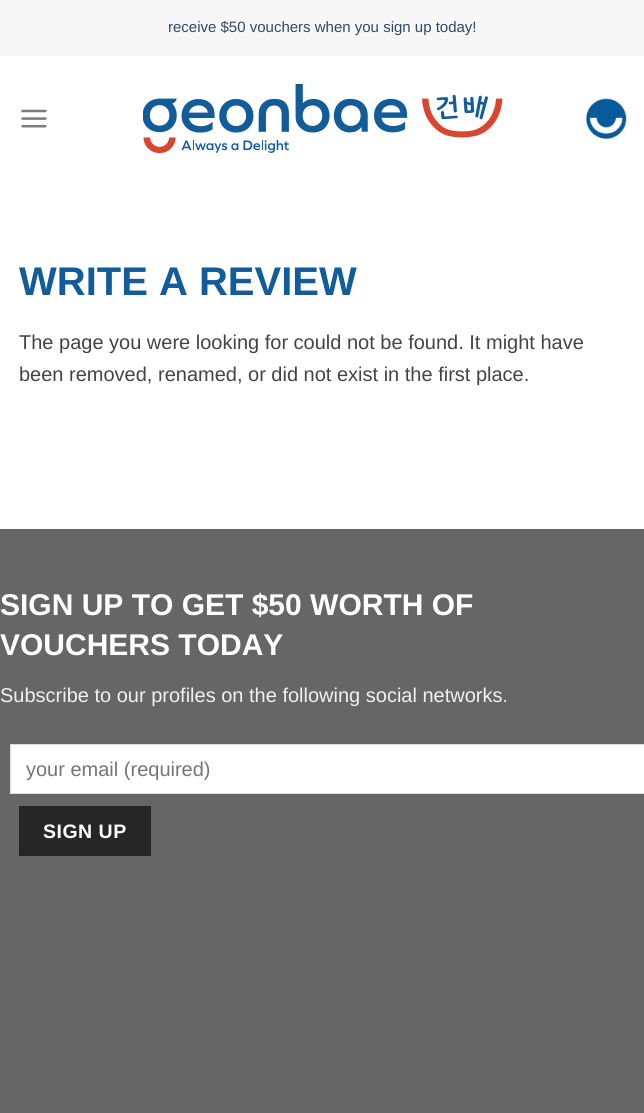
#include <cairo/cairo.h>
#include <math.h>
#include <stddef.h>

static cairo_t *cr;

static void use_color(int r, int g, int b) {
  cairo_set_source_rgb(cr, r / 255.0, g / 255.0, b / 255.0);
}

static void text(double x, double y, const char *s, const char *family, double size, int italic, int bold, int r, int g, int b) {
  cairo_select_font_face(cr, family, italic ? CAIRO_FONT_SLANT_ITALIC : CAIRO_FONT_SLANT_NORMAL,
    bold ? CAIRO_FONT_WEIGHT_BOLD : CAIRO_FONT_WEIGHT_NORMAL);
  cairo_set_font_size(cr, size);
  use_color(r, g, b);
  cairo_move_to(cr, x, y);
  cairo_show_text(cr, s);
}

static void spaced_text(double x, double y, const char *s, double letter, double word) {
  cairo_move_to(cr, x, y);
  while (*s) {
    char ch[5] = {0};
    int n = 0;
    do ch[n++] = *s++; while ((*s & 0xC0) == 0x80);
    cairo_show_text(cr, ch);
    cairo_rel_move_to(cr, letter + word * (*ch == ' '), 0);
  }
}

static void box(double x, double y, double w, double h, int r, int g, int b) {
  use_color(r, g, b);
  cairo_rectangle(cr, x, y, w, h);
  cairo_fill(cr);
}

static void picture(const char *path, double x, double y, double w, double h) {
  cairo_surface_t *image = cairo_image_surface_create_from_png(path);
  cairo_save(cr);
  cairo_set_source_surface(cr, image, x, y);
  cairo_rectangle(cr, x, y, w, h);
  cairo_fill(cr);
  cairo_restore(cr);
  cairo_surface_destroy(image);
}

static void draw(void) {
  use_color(255, 255, 255);
  cairo_paint(cr);
  box(0, 0, 644, 56, 247, 247, 247);
  picture("img_01.png", 21, 109, 26, 19);
  picture("img_02.png", 143, 84, 360, 70);
  picture("img_03.png", 586, 98, 41, 41);
  box(0, 529, 644, 584, 102, 102, 102);
  use_color(255, 255, 255);
  cairo_rectangle(cr, 10.5, 744.5, 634, 49);
  cairo_fill_preserve(cr);
  use_color(221, 221, 221);
  cairo_set_line_width(cr, 1);
  cairo_stroke(cr);
  use_color(38, 38, 38);
  cairo_rectangle(cr, 19.5, 806.5, 131, 49);
  cairo_fill_preserve(cr);
  use_color(36, 36, 36);
  cairo_stroke(cr);
  text(168, 32, "receive $50 vouchers when you sign up today!", "Liberation Sans", 15, 0, 0, 51, 72, 98);
  text(19, 295, "WRITE A REVIEW", "Liberation Sans", 40, 0, 1, 17, 92, 153);
  text(19, 349, "The page you were looking for could not be found. It might have", "Liberation Sans", 20, 0, 0, 68, 68, 68);
  text(19, 381, "been removed, renamed, or did not exist in the first place.", "Liberation Sans", 20, 0, 0, 68, 68, 68);
  text(0, 615, "SIGN UP TO GET $50 WORTH OF", "Liberation Sans", 30, 0, 1, 255, 255, 255);
  text(0, 655, "VOUCHERS TODAY", "Liberation Sans", 30, 0, 1, 255, 255, 255);
  text(0, 702, "Subscribe to our profiles on the following social networks.", "Liberation Sans", 20, 0, 0, 241, 241, 241);
  cairo_save(cr);
  cairo_rectangle(cr, 26, 758, 613, 22);
  cairo_clip(cr);
  text(26, 776, "your email (required)", "Liberation Sans", 20, 0, 0, 117, 117, 117);
  cairo_restore(cr);
  cairo_select_font_face(cr, "Liberation Sans", CAIRO_FONT_SLANT_NORMAL, CAIRO_FONT_WEIGHT_BOLD);
  cairo_set_font_size(cr, 19.5);
  use_color(255, 255, 255);
  spaced_text(43, 838, "SIGN UP", 0.5, 0);
}

int main(void) {
  cairo_surface_t *surface = cairo_image_surface_create(CAIRO_FORMAT_RGB24, 644, 1113);
  cr = cairo_create(surface);
  cairo_font_options_t *options = cairo_font_options_create();
  cairo_font_options_set_hint_metrics(options, CAIRO_HINT_METRICS_OFF);
  cairo_font_options_set_hint_style(options, CAIRO_HINT_STYLE_NONE);
  cairo_set_font_options(cr, options);
  cairo_set_miter_limit(cr, 4);
  draw();
  cairo_surface_write_to_png(surface, "out.png");
  cairo_font_options_destroy(options);
  cairo_destroy(cr);
  cairo_surface_destroy(surface);
  return 0;
}
